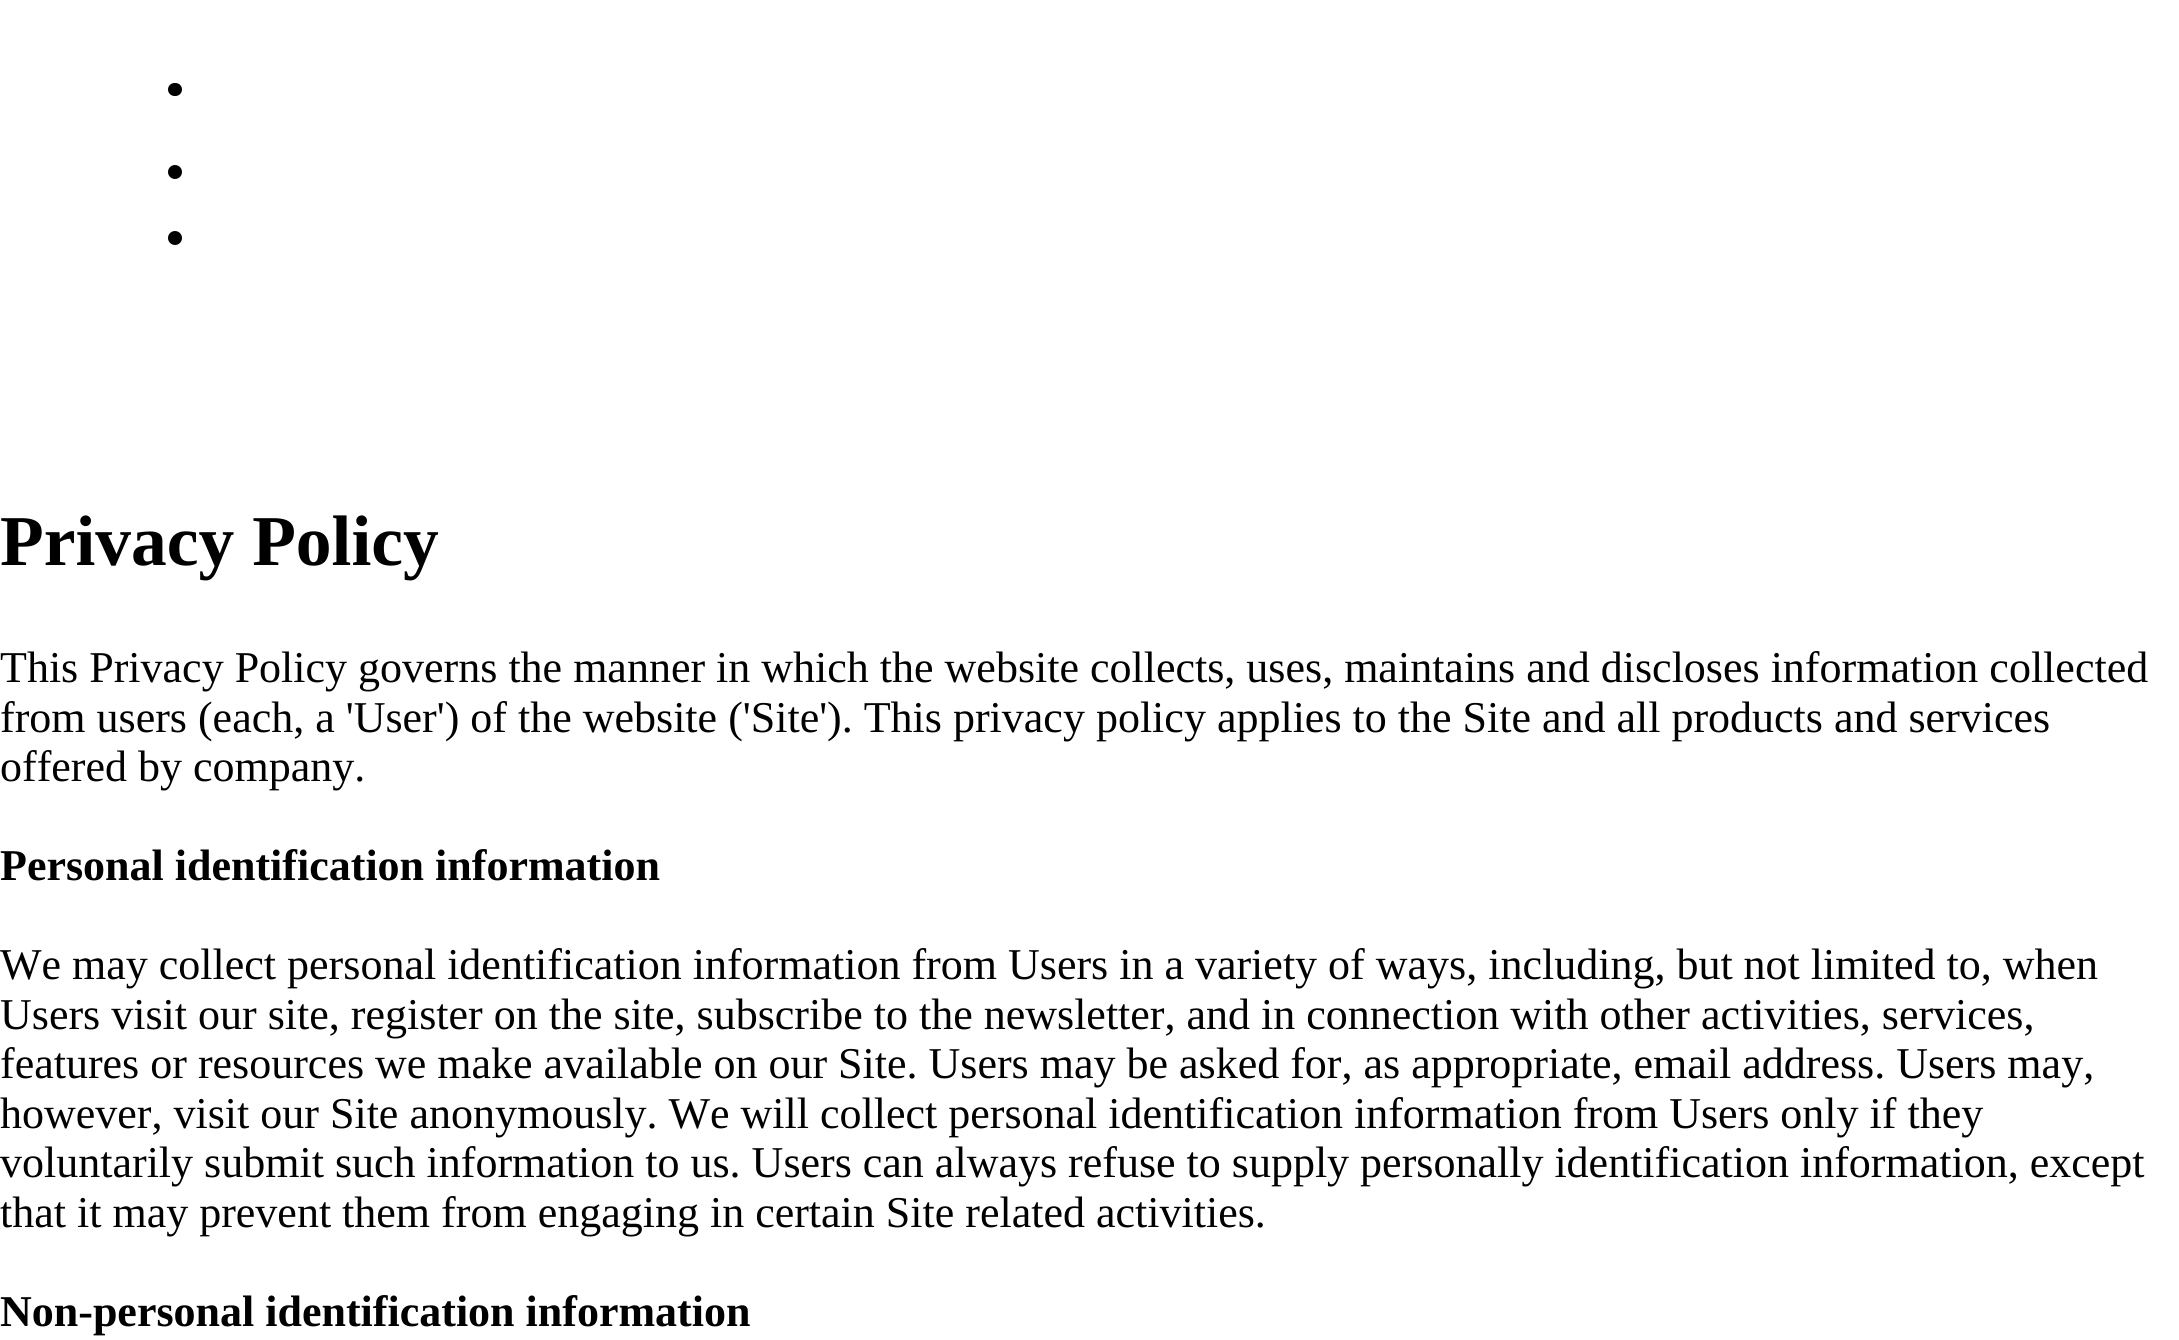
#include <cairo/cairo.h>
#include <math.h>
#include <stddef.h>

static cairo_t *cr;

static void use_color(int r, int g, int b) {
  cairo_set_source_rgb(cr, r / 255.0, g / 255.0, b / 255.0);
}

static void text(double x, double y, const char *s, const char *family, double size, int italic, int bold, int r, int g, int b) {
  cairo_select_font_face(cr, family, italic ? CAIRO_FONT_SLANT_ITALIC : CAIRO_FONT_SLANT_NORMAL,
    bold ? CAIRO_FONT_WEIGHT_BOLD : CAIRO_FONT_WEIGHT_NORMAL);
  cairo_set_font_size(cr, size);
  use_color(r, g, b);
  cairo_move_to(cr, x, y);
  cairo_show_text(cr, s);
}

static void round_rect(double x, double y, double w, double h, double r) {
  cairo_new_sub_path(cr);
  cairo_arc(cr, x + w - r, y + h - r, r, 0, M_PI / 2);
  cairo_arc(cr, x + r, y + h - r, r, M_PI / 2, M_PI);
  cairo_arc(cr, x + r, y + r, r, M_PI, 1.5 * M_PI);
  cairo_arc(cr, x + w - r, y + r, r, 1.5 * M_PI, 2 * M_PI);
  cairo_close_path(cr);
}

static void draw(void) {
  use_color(255, 255, 255);
  cairo_paint(cr);
  use_color(0, 0, 0);
  round_rect(168, 83, 14, 13, 6.5);
  cairo_fill(cr);
  cairo_arc(cr, 175, 172, 7, 0, 2 * M_PI);
  cairo_fill(cr);
  cairo_arc(cr, 175, 238, 7, 0, 2 * M_PI);
  cairo_fill(cr);
  text(0, 565, "Privacy Policy", "Liberation Serif", 71.5, 0, 1, 0, 0, 0);
  text(0, 682, "This Privacy Policy governs the manner in which the website collects, uses, maintains and discloses information collected", "Liberation Serif", 44, 0, 0, 0, 0, 0);
  text(0, 732, "from users (each, a 'User') of the website ('Site'). This privacy policy applies to the Site and all products and services", "Liberation Serif", 44, 0, 0, 0, 0, 0);
  text(0, 781, "offered by company.", "Liberation Serif", 44, 0, 0, 0, 0, 0);
  text(0, 880, "Personal identification information", "Liberation Serif", 44, 0, 1, 0, 0, 0);
  text(0, 979, "We may collect personal identification information from Users in a variety of ways, including, but not limited to, when", "Liberation Serif", 44, 0, 0, 0, 0, 0);
  text(0, 1029, "Users visit our site, register on the site, subscribe to the newsletter, and in connection with other activities, services,", "Liberation Serif", 44, 0, 0, 0, 0, 0);
  text(0, 1078, "features or resources we make available on our Site. Users may be asked for, as appropriate, email address. Users may,", "Liberation Serif", 44, 0, 0, 0, 0, 0);
  text(0, 1128, "however, visit our Site anonymously. We will collect personal identification information from Users only if they", "Liberation Serif", 44, 0, 0, 0, 0, 0);
  text(0, 1177, "voluntarily submit such information to us. Users can always refuse to supply personally identification information, except", "Liberation Serif", 44, 0, 0, 0, 0, 0);
  text(0, 1227, "that it may prevent them from engaging in certain Site related activities.", "Liberation Serif", 44, 0, 0, 0, 0, 0);
  text(0, 1326, "Non-personal identification information", "Liberation Serif", 44, 0, 1, 0, 0, 0);
}

int main(void) {
  cairo_surface_t *surface = cairo_image_surface_create(CAIRO_FORMAT_RGB24, 2179, 1340);
  cr = cairo_create(surface);
  cairo_font_options_t *options = cairo_font_options_create();
  cairo_font_options_set_hint_metrics(options, CAIRO_HINT_METRICS_OFF);
  cairo_font_options_set_hint_style(options, CAIRO_HINT_STYLE_NONE);
  cairo_set_font_options(cr, options);
  cairo_set_miter_limit(cr, 4);
  draw();
  cairo_surface_write_to_png(surface, "out.png");
  cairo_font_options_destroy(options);
  cairo_destroy(cr);
  cairo_surface_destroy(surface);
  return 0;
}
